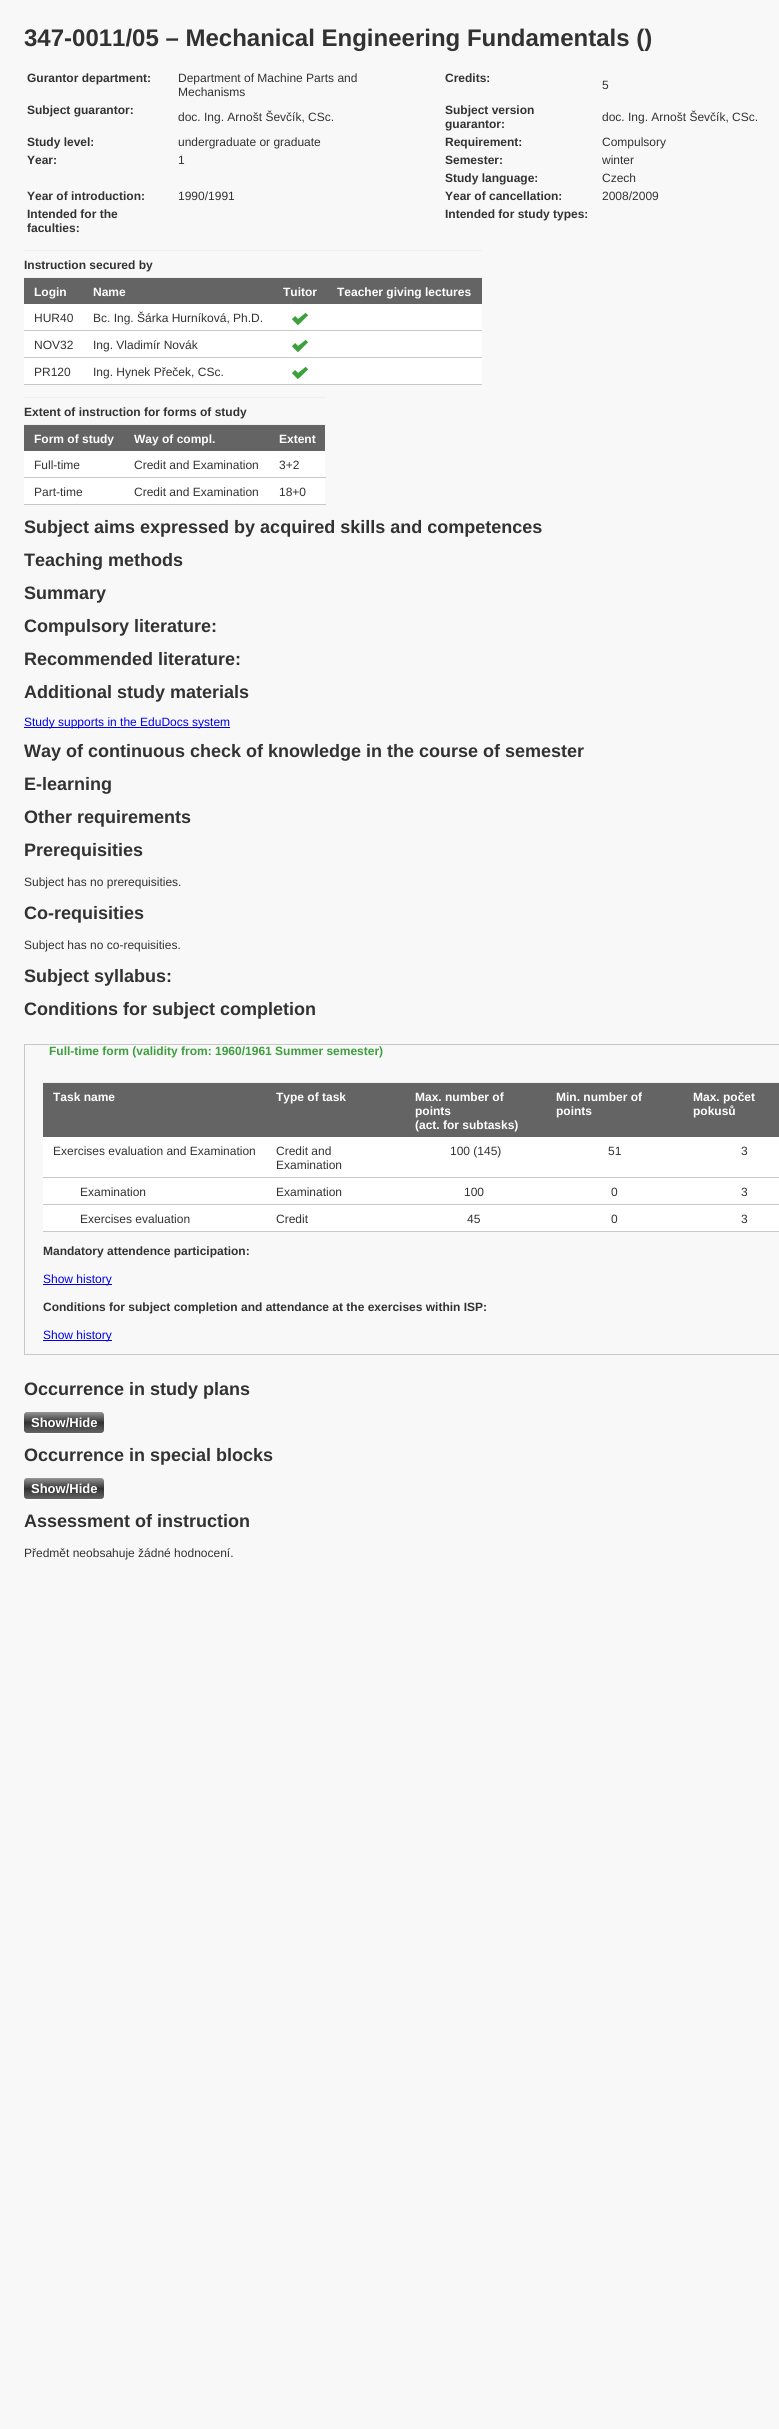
#include <cairo/cairo.h>
#include <math.h>
#include <stddef.h>

static cairo_t *cr;

static void use_color(int r, int g, int b) {
  cairo_set_source_rgb(cr, r / 255.0, g / 255.0, b / 255.0);
}

static void text(double x, double y, const char *s, const char *family, double size, int italic, int bold, int r, int g, int b) {
  cairo_select_font_face(cr, family, italic ? CAIRO_FONT_SLANT_ITALIC : CAIRO_FONT_SLANT_NORMAL,
    bold ? CAIRO_FONT_WEIGHT_BOLD : CAIRO_FONT_WEIGHT_NORMAL);
  cairo_set_font_size(cr, size);
  use_color(r, g, b);
  cairo_move_to(cr, x, y);
  cairo_show_text(cr, s);
}

static void box(double x, double y, double w, double h, int r, int g, int b) {
  use_color(r, g, b);
  cairo_rectangle(cr, x, y, w, h);
  cairo_fill(cr);
}

static void round_rect(double x, double y, double w, double h, double r) {
  cairo_new_sub_path(cr);
  cairo_arc(cr, x + w - r, y + h - r, r, 0, M_PI / 2);
  cairo_arc(cr, x + r, y + h - r, r, M_PI / 2, M_PI);
  cairo_arc(cr, x + r, y + r, r, M_PI, 1.5 * M_PI);
  cairo_arc(cr, x + w - r, y + r, r, 1.5 * M_PI, 2 * M_PI);
  cairo_close_path(cr);
}

static void picture(const char *path, double x, double y, double w, double h) {
  cairo_surface_t *image = cairo_image_surface_create_from_png(path);
  cairo_save(cr);
  cairo_set_source_surface(cr, image, x, y);
  cairo_rectangle(cr, x, y, w, h);
  cairo_fill(cr);
  cairo_restore(cr);
  cairo_surface_destroy(image);
}

static void draw(void) {
  cairo_pattern_t *gradient;
  use_color(248, 248, 248);
  cairo_paint(cr);
  box(24, 250, 458, 1, 240, 240, 240);
  box(24, 277, 458, 1, 240, 240, 240);
  box(24, 278, 458, 26, 100, 100, 100);
  box(24, 304, 458, 26, 255, 255, 255);
  picture("img_01.png", 292, 313, 16, 12);
  box(24, 330, 458, 1, 200, 200, 200);
  box(24, 331, 458, 26, 255, 255, 255);
  picture("img_01.png", 292, 340, 16, 12);
  box(24, 357, 458, 1, 200, 200, 200);
  box(24, 358, 458, 26, 255, 255, 255);
  picture("img_01.png", 292, 367, 16, 12);
  box(24, 384, 458, 1, 200, 200, 200);
  box(24, 397, 302, 1, 240, 240, 240);
  box(24, 424, 302, 1, 240, 240, 240);
  box(24, 425, 301, 26, 100, 100, 100);
  box(24, 451, 301, 26, 255, 255, 255);
  box(24, 477, 302, 1, 200, 200, 200);
  box(24, 478, 301, 26, 255, 255, 255);
  box(24, 504, 302, 1, 200, 200, 200);
  box(24, 727, 206, 1, 0, 0, 238);
  cairo_rectangle(cr, 24.5, 1044.5, 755, 310);
  use_color(200, 200, 200);
  cairo_set_line_width(cr, 1);
  cairo_stroke(cr);
  box(43, 1082, 736, 1, 240, 240, 240);
  box(43, 1083, 736, 54, 100, 100, 100);
  box(43, 1137, 736, 40, 255, 255, 255);
  box(43, 1177, 736, 1, 200, 200, 200);
  box(43, 1178, 736, 26, 255, 255, 255);
  box(43, 1204, 736, 1, 200, 200, 200);
  box(43, 1205, 736, 26, 255, 255, 255);
  box(43, 1231, 736, 1, 200, 200, 200);
  box(43, 1284, 69, 1, 0, 0, 238);
  box(43, 1340, 69, 1, 0, 0, 238);
  use_color(255, 255, 255);
  cairo_new_path(cr);
  cairo_move_to(cr, 24, 1430);
  cairo_curve_to(cr, 24, 1437, 35, 1434, 39, 1434);
  cairo_line_to(cr, 89, 1434);
  cairo_curve_to(cr, 93, 1434, 104, 1437, 104, 1430);
  cairo_curve_to(cr, 104, 1432, 103, 1433, 101, 1433);
  cairo_line_to(cr, 27, 1433);
  cairo_curve_to(cr, 25, 1433, 24, 1432, 24, 1430);
  cairo_close_path(cr);
  cairo_fill(cr);
  gradient = cairo_pattern_create_linear(64, 1412, 64, 1433);
  cairo_pattern_add_color_stop_rgba(gradient, 0, 0.588, 0.588, 0.588, 1);
  cairo_pattern_add_color_stop_rgba(gradient, 0.5, 0.196, 0.196, 0.196, 1);
  cairo_pattern_add_color_stop_rgba(gradient, 1, 0.392, 0.392, 0.392, 1);
  cairo_set_source(cr, gradient);
  cairo_pattern_destroy(gradient);
  round_rect(24, 1412, 80, 21, 3);
  cairo_fill(cr);
  use_color(255, 255, 255);
  cairo_new_path(cr);
  cairo_move_to(cr, 24, 1496);
  cairo_curve_to(cr, 24, 1503, 35, 1500, 39, 1500);
  cairo_line_to(cr, 89, 1500);
  cairo_curve_to(cr, 93, 1500, 104, 1503, 104, 1496);
  cairo_curve_to(cr, 104, 1498, 103, 1499, 101, 1499);
  cairo_line_to(cr, 27, 1499);
  cairo_curve_to(cr, 25, 1499, 24, 1498, 24, 1496);
  cairo_close_path(cr);
  cairo_fill(cr);
  gradient = cairo_pattern_create_linear(64, 1478, 64, 1499);
  cairo_pattern_add_color_stop_rgba(gradient, 0, 0.588, 0.588, 0.588, 1);
  cairo_pattern_add_color_stop_rgba(gradient, 0.5, 0.196, 0.196, 0.196, 1);
  cairo_pattern_add_color_stop_rgba(gradient, 1, 0.392, 0.392, 0.392, 1);
  cairo_set_source(cr, gradient);
  cairo_pattern_destroy(gradient);
  round_rect(24, 1478, 80, 21, 3);
  cairo_fill(cr);
  text(24, 46, "347-0011/05 – Mechanical Engineering Fundamentals ()", "Liberation Sans", 24, 0, 1, 50, 50, 50);
  text(27, 82, "Gurantor department:", "Liberation Sans", 12, 0, 1, 50, 50, 50);
  text(178, 82, "Department of Machine Parts and", "Liberation Sans", 12, 0, 0, 50, 50, 50);
  text(178, 96, "Mechanisms", "Liberation Sans", 12, 0, 0, 50, 50, 50);
  text(445, 82, "Credits:", "Liberation Sans", 12, 0, 1, 50, 50, 50);
  text(602, 89, "5", "Liberation Sans", 12, 0, 0, 50, 50, 50);
  text(27, 114, "Subject guarantor:", "Liberation Sans", 12, 0, 1, 50, 50, 50);
  text(178, 121, "doc. Ing. Arnošt Ševčík, CSc.", "Liberation Sans", 12, 0, 0, 50, 50, 50);
  text(445, 114, "Subject version", "Liberation Sans", 12, 0, 1, 50, 50, 50);
  text(445, 128, "guarantor:", "Liberation Sans", 12, 0, 1, 50, 50, 50);
  text(602, 121, "doc. Ing. Arnošt Ševčík, CSc.", "Liberation Sans", 12, 0, 0, 50, 50, 50);
  text(27, 146, "Study level:", "Liberation Sans", 12, 0, 1, 50, 50, 50);
  text(178, 146, "undergraduate or graduate", "Liberation Sans", 12, 0, 0, 50, 50, 50);
  text(445, 146, "Requirement:", "Liberation Sans", 12, 0, 1, 50, 50, 50);
  text(602, 146, "Compulsory", "Liberation Sans", 12, 0, 0, 50, 50, 50);
  text(27, 164, "Year:", "Liberation Sans", 12, 0, 1, 50, 50, 50);
  text(178, 164, "1", "Liberation Sans", 12, 0, 0, 50, 50, 50);
  text(445, 164, "Semester:", "Liberation Sans", 12, 0, 1, 50, 50, 50);
  text(602, 164, "winter", "Liberation Sans", 12, 0, 0, 50, 50, 50);
  text(445, 182, "Study language:", "Liberation Sans", 12, 0, 1, 50, 50, 50);
  text(602, 182, "Czech", "Liberation Sans", 12, 0, 0, 50, 50, 50);
  text(27, 200, "Year of introduction:", "Liberation Sans", 12, 0, 1, 50, 50, 50);
  text(178, 200, "1990/1991", "Liberation Sans", 12, 0, 0, 50, 50, 50);
  text(445, 200, "Year of cancellation:", "Liberation Sans", 12, 0, 1, 50, 50, 50);
  text(602, 200, "2008/2009", "Liberation Sans", 12, 0, 0, 50, 50, 50);
  text(27, 218, "Intended for the", "Liberation Sans", 12, 0, 1, 50, 50, 50);
  text(27, 232, "faculties:", "Liberation Sans", 12, 0, 1, 50, 50, 50);
  text(445, 218, "Intended for study types:", "Liberation Sans", 12, 0, 1, 50, 50, 50);
  text(24, 269, "Instruction secured by", "Liberation Sans", 12, 0, 1, 50, 50, 50);
  text(34, 296, "Login", "Liberation Sans", 12, 0, 1, 255, 255, 255);
  text(93, 296, "Name", "Liberation Sans", 12, 0, 1, 255, 255, 255);
  text(283, 296, "Tuitor", "Liberation Sans", 12, 0, 1, 255, 255, 255);
  text(337, 296, "Teacher giving lectures", "Liberation Sans", 12, 0, 1, 255, 255, 255);
  text(34, 322, "HUR40", "Liberation Sans", 12, 0, 0, 50, 50, 50);
  text(93, 322, "Bc. Ing. Šárka Hurníková, Ph.D.", "Liberation Sans", 12, 0, 0, 50, 50, 50);
  text(34, 349, "NOV32", "Liberation Sans", 12, 0, 0, 50, 50, 50);
  text(93, 349, "Ing. Vladimír Novák", "Liberation Sans", 12, 0, 0, 50, 50, 50);
  text(34, 376, "PR120", "Liberation Sans", 12, 0, 0, 50, 50, 50);
  text(93, 376, "Ing. Hynek Přeček, CSc.", "Liberation Sans", 12, 0, 0, 50, 50, 50);
  text(24, 416, "Extent of instruction for forms of study", "Liberation Sans", 12, 0, 1, 50, 50, 50);
  text(34, 443, "Form of study", "Liberation Sans", 12, 0, 1, 255, 255, 255);
  text(134, 443, "Way of compl.", "Liberation Sans", 12, 0, 1, 255, 255, 255);
  text(279, 443, "Extent", "Liberation Sans", 12, 0, 1, 255, 255, 255);
  text(34, 469, "Full-time", "Liberation Sans", 12, 0, 0, 50, 50, 50);
  text(134, 469, "Credit and Examination", "Liberation Sans", 12, 0, 0, 50, 50, 50);
  text(279, 469, "3+2", "Liberation Sans", 12, 0, 0, 50, 50, 50);
  text(34, 496, "Part-time", "Liberation Sans", 12, 0, 0, 50, 50, 50);
  text(134, 496, "Credit and Examination", "Liberation Sans", 12, 0, 0, 50, 50, 50);
  text(279, 496, "18+0", "Liberation Sans", 12, 0, 0, 50, 50, 50);
  text(24, 533, "Subject aims expressed by acquired skills and competences", "Liberation Sans", 18, 0, 1, 50, 50, 50);
  text(24, 566, "Teaching methods", "Liberation Sans", 18, 0, 1, 50, 50, 50);
  text(24, 599, "Summary", "Liberation Sans", 18, 0, 1, 50, 50, 50);
  text(24, 632, "Compulsory literature:", "Liberation Sans", 18, 0, 1, 50, 50, 50);
  text(24, 665, "Recommended literature:", "Liberation Sans", 18, 0, 1, 50, 50, 50);
  text(24, 698, "Additional study materials", "Liberation Sans", 18, 0, 1, 50, 50, 50);
  text(24, 726, "Study supports in the EduDocs system", "Liberation Sans", 12, 0, 0, 0, 0, 238);
  text(24, 757, "Way of continuous check of knowledge in the course of semester", "Liberation Sans", 18, 0, 1, 50, 50, 50);
  text(24, 790, "E-learning", "Liberation Sans", 18, 0, 1, 50, 50, 50);
  text(24, 823, "Other requirements", "Liberation Sans", 18, 0, 1, 50, 50, 50);
  text(24, 856, "Prerequisities", "Liberation Sans", 18, 0, 1, 50, 50, 50);
  text(24, 886, "Subject has no prerequisities.", "Liberation Sans", 12, 0, 0, 50, 50, 50);
  text(24, 919, "Co-requisities", "Liberation Sans", 18, 0, 1, 50, 50, 50);
  text(24, 949, "Subject has no co-requisities.", "Liberation Sans", 12, 0, 0, 50, 50, 50);
  text(24, 982, "Subject syllabus:", "Liberation Sans", 18, 0, 1, 50, 50, 50);
  text(24, 1015, "Conditions for subject completion", "Liberation Sans", 18, 0, 1, 50, 50, 50);
  text(49, 1055, "Full-time form (validity from: 1960/1961 Summer semester)", "Liberation Sans", 12, 0, 1, 60, 160, 60);
  text(53, 1101, "Task name", "Liberation Sans", 12, 0, 1, 255, 255, 255);
  text(276, 1101, "Type of task", "Liberation Sans", 12, 0, 1, 255, 255, 255);
  text(415, 1101, "Max. number of", "Liberation Sans", 12, 0, 1, 255, 255, 255);
  text(415, 1115, "points", "Liberation Sans", 12, 0, 1, 255, 255, 255);
  text(415, 1129, "(act. for subtasks)", "Liberation Sans", 12, 0, 1, 255, 255, 255);
  text(556, 1101, "Min. number of", "Liberation Sans", 12, 0, 1, 255, 255, 255);
  text(556, 1115, "points", "Liberation Sans", 12, 0, 1, 255, 255, 255);
  text(693, 1101, "Max. počet", "Liberation Sans", 12, 0, 1, 255, 255, 255);
  text(693, 1115, "pokusů", "Liberation Sans", 12, 0, 1, 255, 255, 255);
  text(53, 1155, "Exercises evaluation and Examination", "Liberation Sans", 12, 0, 0, 50, 50, 50);
  text(276, 1155, "Credit and", "Liberation Sans", 12, 0, 0, 50, 50, 50);
  text(276, 1169, "Examination", "Liberation Sans", 12, 0, 0, 50, 50, 50);
  text(450, 1155, "100 (145)", "Liberation Sans", 12, 0, 0, 50, 50, 50);
  text(608, 1155, "51", "Liberation Sans", 12, 0, 0, 50, 50, 50);
  text(741, 1155, "3", "Liberation Sans", 12, 0, 0, 50, 50, 50);
  text(80, 1196, "Examination", "Liberation Sans", 12, 0, 0, 50, 50, 50);
  text(276, 1196, "Examination", "Liberation Sans", 12, 0, 0, 50, 50, 50);
  text(464, 1196, "100", "Liberation Sans", 12, 0, 0, 50, 50, 50);
  text(611, 1196, "0", "Liberation Sans", 12, 0, 0, 50, 50, 50);
  text(741, 1196, "3", "Liberation Sans", 12, 0, 0, 50, 50, 50);
  text(80, 1223, "Exercises evaluation", "Liberation Sans", 12, 0, 0, 50, 50, 50);
  text(276, 1223, "Credit", "Liberation Sans", 12, 0, 0, 50, 50, 50);
  text(467, 1223, "45", "Liberation Sans", 12, 0, 0, 50, 50, 50);
  text(611, 1223, "0", "Liberation Sans", 12, 0, 0, 50, 50, 50);
  text(741, 1223, "3", "Liberation Sans", 12, 0, 0, 50, 50, 50);
  text(43, 1255, "Mandatory attendence participation:", "Liberation Sans", 12, 0, 1, 50, 50, 50);
  text(43, 1283, "Show history", "Liberation Sans", 12, 0, 0, 0, 0, 238);
  text(43, 1311, "Conditions for subject completion and attendance at the exercises within ISP:", "Liberation Sans", 12, 0, 1, 50, 50, 50);
  text(43, 1339, "Show history", "Liberation Sans", 12, 0, 0, 0, 0, 238);
  text(24, 1395, "Occurrence in study plans", "Liberation Sans", 18, 0, 1, 50, 50, 50);
  text(31, 1427, "Show/Hide", "Liberation Sans", 13, 0, 1, 255, 255, 255);
  text(24, 1461, "Occurrence in special blocks", "Liberation Sans", 18, 0, 1, 50, 50, 50);
  text(31, 1493, "Show/Hide", "Liberation Sans", 13, 0, 1, 255, 255, 255);
  text(24, 1527, "Assessment of instruction", "Liberation Sans", 18, 0, 1, 50, 50, 50);
  text(24, 1557, "Předmět neobsahuje žádné hodnocení.", "Liberation Sans", 12, 0, 0, 50, 50, 50);
}

int main(void) {
  cairo_surface_t *surface = cairo_image_surface_create(CAIRO_FORMAT_RGB24, 779, 2429);
  cr = cairo_create(surface);
  cairo_font_options_t *options = cairo_font_options_create();
  cairo_font_options_set_hint_metrics(options, CAIRO_HINT_METRICS_OFF);
  cairo_font_options_set_hint_style(options, CAIRO_HINT_STYLE_NONE);
  cairo_set_font_options(cr, options);
  cairo_set_miter_limit(cr, 4);
  draw();
  cairo_surface_write_to_png(surface, "out.png");
  cairo_font_options_destroy(options);
  cairo_destroy(cr);
  cairo_surface_destroy(surface);
  return 0;
}
